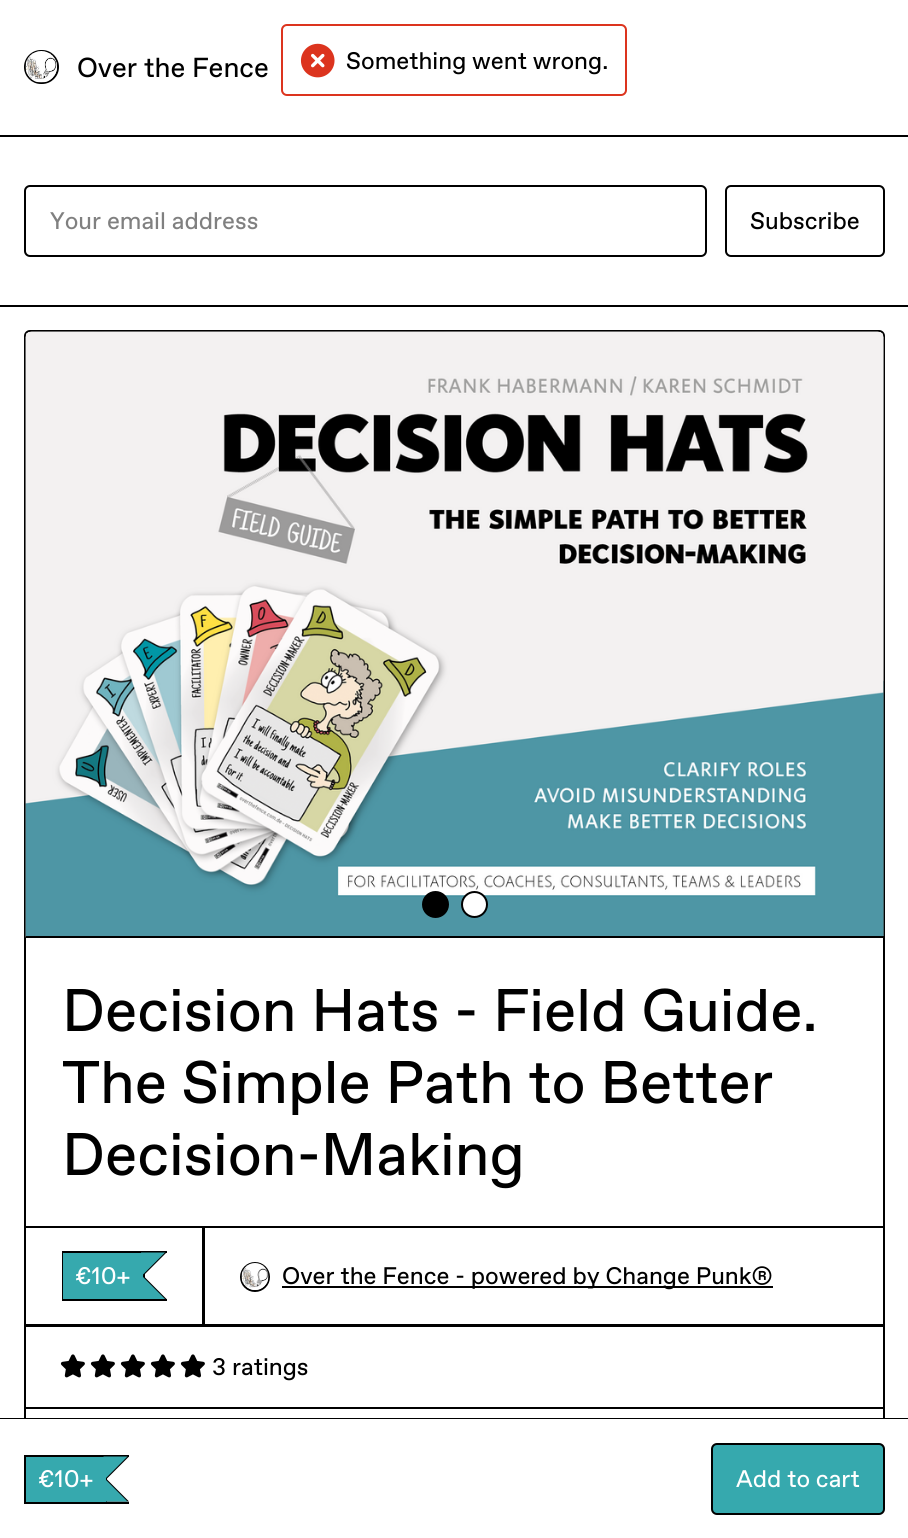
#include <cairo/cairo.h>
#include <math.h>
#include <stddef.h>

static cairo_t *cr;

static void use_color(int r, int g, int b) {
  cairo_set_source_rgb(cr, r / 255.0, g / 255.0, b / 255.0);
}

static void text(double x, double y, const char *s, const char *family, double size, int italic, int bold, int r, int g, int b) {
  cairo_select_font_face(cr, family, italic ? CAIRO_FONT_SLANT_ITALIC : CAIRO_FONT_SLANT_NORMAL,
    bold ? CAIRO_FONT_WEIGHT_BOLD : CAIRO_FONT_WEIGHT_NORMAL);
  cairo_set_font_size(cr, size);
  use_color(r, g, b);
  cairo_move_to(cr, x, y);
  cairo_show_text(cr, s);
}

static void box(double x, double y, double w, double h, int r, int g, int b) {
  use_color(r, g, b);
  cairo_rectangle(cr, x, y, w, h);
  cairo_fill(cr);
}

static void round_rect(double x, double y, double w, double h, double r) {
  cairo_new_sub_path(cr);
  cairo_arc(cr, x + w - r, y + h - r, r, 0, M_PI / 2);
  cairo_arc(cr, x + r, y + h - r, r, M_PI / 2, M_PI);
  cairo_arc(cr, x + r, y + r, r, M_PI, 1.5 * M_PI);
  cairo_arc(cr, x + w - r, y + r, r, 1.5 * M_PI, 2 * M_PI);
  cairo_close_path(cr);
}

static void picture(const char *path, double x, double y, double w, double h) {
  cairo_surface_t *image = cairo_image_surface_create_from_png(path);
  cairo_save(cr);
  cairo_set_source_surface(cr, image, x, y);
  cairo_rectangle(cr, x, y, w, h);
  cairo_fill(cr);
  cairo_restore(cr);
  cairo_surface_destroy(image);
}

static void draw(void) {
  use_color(255, 255, 255);
  cairo_paint(cr);
  round_rect(282, 25, 344, 70, 5);
  use_color(220, 52, 30);
  cairo_stroke(cr);
  picture("img_01.png", 300, 43, 35, 35);
  box(0, 135, 908, 2, 0, 0, 0);
  round_rect(25, 51, 33, 32, 16);
  cairo_stroke(cr);
  picture("img_02.png", 25, 51, 32, 32);
  box(0, 305, 908, 2, 0, 0, 0);
  round_rect(25, 186, 681, 70, 5);
  cairo_stroke(cr);
  round_rect(726, 186, 158, 70, 5);
  cairo_stroke(cr);
  round_rect(25, 331, 859, 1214, 5);
  cairo_stroke(cr);
  picture("img_03.png", 25, 331, 859, 607);
  box(26, 936, 858, 2, 0, 0, 0);
  picture("img_04.png", 25, 331, 859, 605);
  picture("img_05.png", 883, 335, 1, 601);
  cairo_arc(cr, 435.5, 904.5, 12.5, 0, 2 * M_PI);
  cairo_fill_preserve(cr);
  cairo_stroke(cr);
  use_color(255, 255, 255);
  cairo_arc(cr, 474.5, 904.5, 12.5, 0, 2 * M_PI);
  cairo_fill_preserve(cr);
  use_color(0, 0, 0);
  cairo_stroke(cr);
  cairo_rectangle(cr, 25, 1227, 178, 98);
  cairo_stroke(cr);
  box(62, 1251, 105, 2, 0, 0, 0);
  box(62, 1299, 105, 2, 0, 0, 0);
  box(62, 1251, 2, 50, 0, 0, 0);
  box(63, 1253, 80, 46, 54, 169, 174);
  use_color(0, 0, 0);
  cairo_new_path(cr);
  cairo_move_to(cr, 142.5, 1252.5);
  cairo_line_to(cr, 166.5, 1252.5);
  cairo_line_to(cr, 144, 1275);
  cairo_close_path(cr);
  cairo_move_to(cr, 166.5, 1299);
  cairo_line_to(cr, 142.5, 1299);
  cairo_line_to(cr, 144, 1276.5);
  cairo_close_path(cr);
  cairo_fill(cr);
  box(143, 1272, 2, 7, 0, 0, 0);
  use_color(54, 169, 174);
  cairo_new_path(cr);
  cairo_move_to(cr, 141, 1252.5);
  cairo_line_to(cr, 165, 1252.5);
  cairo_line_to(cr, 142.5, 1275);
  cairo_close_path(cr);
  cairo_move_to(cr, 165, 1299);
  cairo_line_to(cr, 141, 1299);
  cairo_line_to(cr, 142.5, 1276.5);
  cairo_close_path(cr);
  cairo_fill(cr);
  cairo_rectangle(cr, 204, 1227, 680, 98);
  use_color(0, 0, 0);
  cairo_stroke(cr);
  cairo_arc(cr, 255, 1277, 14, 0, 2 * M_PI);
  cairo_stroke(cr);
  picture("img_06.png", 241, 1263, 28, 27);
  box(282, 1286, 491, 2, 0, 0, 0);
  cairo_rectangle(cr, 25, 1326, 859, 82);
  cairo_stroke(cr);
  picture("img_07.png", 60, 1354, 25, 24);
  picture("img_07.png", 90, 1354, 25, 24);
  picture("img_07.png", 120, 1354, 25, 24);
  picture("img_07.png", 150, 1354, 25, 24);
  picture("img_07.png", 180, 1354, 25, 24);
  box(0, 1418, 908, 1, 0, 0, 0);
  box(24, 1419, 861, 119, 255, 255, 255);
  box(24, 1455, 105, 2, 0, 0, 0);
  box(24, 1502, 105, 2, 0, 0, 0);
  box(24, 1455, 2, 48, 0, 0, 0);
  box(26, 1457, 78, 45, 54, 169, 174);
  use_color(0, 0, 0);
  cairo_new_path(cr);
  cairo_move_to(cr, 105, 1456.5);
  cairo_line_to(cr, 129, 1456.5);
  cairo_line_to(cr, 106.5, 1479);
  cairo_close_path(cr);
  cairo_move_to(cr, 129, 1501.5);
  cairo_line_to(cr, 105, 1501.5);
  cairo_line_to(cr, 106.5, 1479);
  cairo_close_path(cr);
  cairo_fill(cr);
  box(106, 1477, 1, 25, 0, 0, 0);
  use_color(54, 169, 174);
  cairo_new_path(cr);
  cairo_move_to(cr, 103.5, 1456.5);
  cairo_line_to(cr, 127.5, 1456.5);
  cairo_line_to(cr, 105, 1479);
  cairo_close_path(cr);
  cairo_move_to(cr, 127.5, 1501.5);
  cairo_line_to(cr, 103.5, 1501.5);
  cairo_line_to(cr, 105, 1479);
  cairo_close_path(cr);
  cairo_fill(cr);
  box(104, 1457, 2, 45, 54, 169, 174);
  round_rect(712, 1444, 172, 70, 5);
  cairo_fill_preserve(cr);
  use_color(0, 0, 0);
  cairo_stroke(cr);
  text(346, 69, "Something went wrong.", "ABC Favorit", 24, 0, 0, 0, 0, 0);
  text(77, 77, "Over the Fence", "ABC Favorit", 27.5, 0, 0, 0, 0, 0);
  text(50, 229, "Your email address", "ABC Favorit", 24, 0, 0, 128, 128, 128);
  text(750, 229, "Subscribe", "ABC Favorit", 24, 0, 0, 0, 0, 0);
  text(62, 1031, "Decision Hats - Field Guide.", "ABC Favorit", 60, 0, 0, 0, 0, 0);
  text(62, 1103, "The Simple Path to Better", "ABC Favorit", 60, 0, 0, 0, 0, 0);
  text(62, 1175, "Decision-Making", "ABC Favorit", 60, 0, 0, 0, 0, 0);
  text(75, 1284, "€10+", "ABC Favorit", 24, 0, 0, 255, 255, 255);
  text(282, 1284, "Over the Fence - powered by Change Punk®", "ABC Favorit", 24, 0, 0, 0, 0, 0);
  text(212, 1375, "3 ratings", "ABC Favorit", 24, 0, 0, 0, 0, 0);
  text(38, 1487, "€10+", "ABC Favorit", 24, 0, 0, 255, 255, 255);
  text(736, 1487, "Add to cart", "ABC Favorit", 24, 0, 0, 255, 255, 255);
}

int main(void) {
  cairo_surface_t *surface = cairo_image_surface_create(CAIRO_FORMAT_RGB24, 908, 1538);
  cr = cairo_create(surface);
  cairo_font_options_t *options = cairo_font_options_create();
  cairo_font_options_set_hint_metrics(options, CAIRO_HINT_METRICS_OFF);
  cairo_font_options_set_hint_style(options, CAIRO_HINT_STYLE_NONE);
  cairo_set_font_options(cr, options);
  cairo_set_miter_limit(cr, 4);
  draw();
  cairo_surface_write_to_png(surface, "out.png");
  cairo_font_options_destroy(options);
  cairo_destroy(cr);
  cairo_surface_destroy(surface);
  return 0;
}
